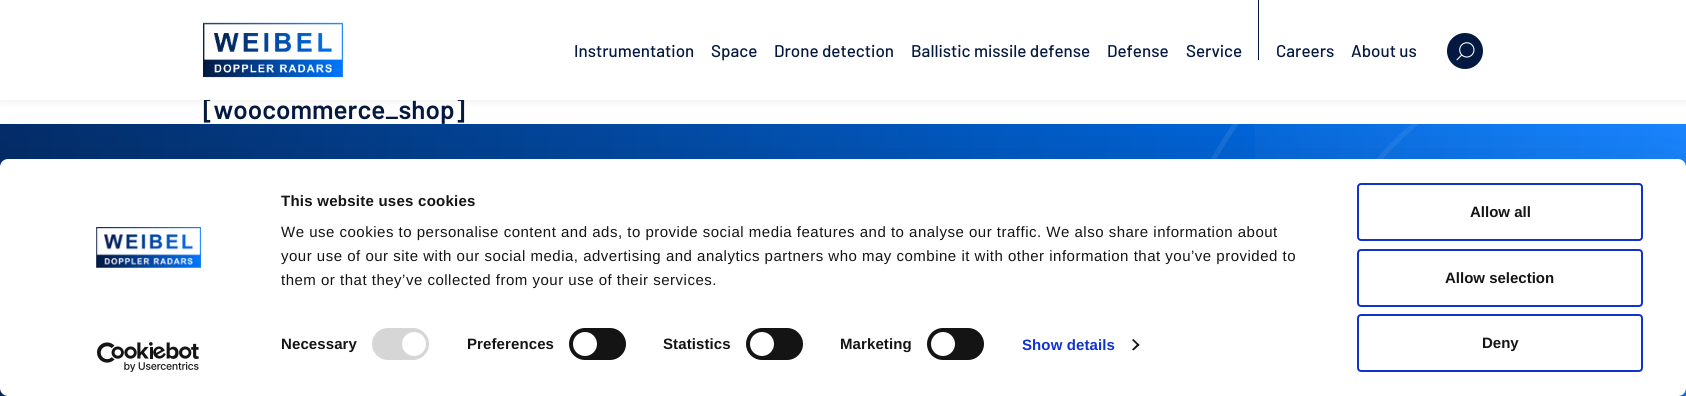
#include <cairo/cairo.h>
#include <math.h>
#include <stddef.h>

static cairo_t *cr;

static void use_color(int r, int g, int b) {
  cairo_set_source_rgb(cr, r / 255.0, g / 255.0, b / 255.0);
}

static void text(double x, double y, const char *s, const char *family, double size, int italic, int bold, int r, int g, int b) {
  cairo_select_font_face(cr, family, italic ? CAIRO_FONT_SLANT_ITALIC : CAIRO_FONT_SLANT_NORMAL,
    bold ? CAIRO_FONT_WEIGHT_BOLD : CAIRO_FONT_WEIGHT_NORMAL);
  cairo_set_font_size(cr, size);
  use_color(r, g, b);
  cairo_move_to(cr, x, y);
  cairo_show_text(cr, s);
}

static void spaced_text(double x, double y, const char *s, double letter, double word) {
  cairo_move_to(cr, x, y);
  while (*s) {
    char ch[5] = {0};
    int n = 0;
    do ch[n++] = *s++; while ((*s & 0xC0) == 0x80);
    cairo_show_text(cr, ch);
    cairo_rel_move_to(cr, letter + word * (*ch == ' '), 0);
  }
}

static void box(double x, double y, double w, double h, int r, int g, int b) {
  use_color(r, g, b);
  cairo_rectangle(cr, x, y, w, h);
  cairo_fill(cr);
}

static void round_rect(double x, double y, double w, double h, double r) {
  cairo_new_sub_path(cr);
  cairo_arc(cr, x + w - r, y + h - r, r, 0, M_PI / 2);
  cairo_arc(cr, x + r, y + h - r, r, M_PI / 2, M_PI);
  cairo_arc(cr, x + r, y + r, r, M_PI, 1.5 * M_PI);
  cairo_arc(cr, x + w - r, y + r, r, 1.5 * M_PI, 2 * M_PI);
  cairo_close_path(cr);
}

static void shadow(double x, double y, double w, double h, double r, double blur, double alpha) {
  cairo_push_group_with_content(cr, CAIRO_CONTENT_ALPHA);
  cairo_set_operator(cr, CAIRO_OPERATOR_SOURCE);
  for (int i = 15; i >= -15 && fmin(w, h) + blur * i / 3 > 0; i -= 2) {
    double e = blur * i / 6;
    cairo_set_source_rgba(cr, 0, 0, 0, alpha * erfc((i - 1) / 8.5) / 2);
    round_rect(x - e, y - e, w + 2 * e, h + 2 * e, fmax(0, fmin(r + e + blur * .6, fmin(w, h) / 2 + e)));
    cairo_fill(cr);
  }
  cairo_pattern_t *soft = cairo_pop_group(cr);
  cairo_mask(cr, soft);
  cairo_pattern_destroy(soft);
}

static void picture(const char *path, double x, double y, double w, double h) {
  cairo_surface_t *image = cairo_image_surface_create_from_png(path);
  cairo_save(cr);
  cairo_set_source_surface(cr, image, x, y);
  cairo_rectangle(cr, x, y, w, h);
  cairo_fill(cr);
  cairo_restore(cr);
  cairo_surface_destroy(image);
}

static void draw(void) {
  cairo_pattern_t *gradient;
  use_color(255, 255, 255);
  cairo_paint(cr);
  use_color(0, 0, 0);
  shadow(0, 3, 1686, 100, 0, 3, 0.05);
  gradient = cairo_pattern_create_linear(-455, 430, 1686, 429);
  cairo_pattern_add_color_stop_rgba(gradient, 0, 0.016, 0.098, 0.255, 1);
  cairo_pattern_add_color_stop_rgba(gradient, 1, 0, 0.471, 1, 1);
  cairo_set_source(cr, gradient);
  cairo_pattern_destroy(gradient);
  cairo_rectangle(cr, 0, 124, 1686, 272);
  cairo_fill(cr);
  gradient = cairo_pattern_create_linear(1136, 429, 1686, 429);
  cairo_pattern_add_color_stop_rgba(gradient, 0, 1, 1, 1, 0);
  cairo_pattern_add_color_stop_rgba(gradient, 1, 1, 1, 1, 0.1);
  cairo_set_source(cr, gradient);
  cairo_pattern_destroy(gradient);
  cairo_rectangle(cr, 1255, 124, 431, 272);
  cairo_fill(cr);
  picture("img_03.png", 1211, 124, 207, 35);
  text(203, 119, "[woocommerce_shop]", "Barlow SemiBold", 26, 0, 0, 4, 25, 65);
  box(0, 0, 1686, 100, 255, 255, 255);
  text(1351, 57, "About us", "Barlow Medium", 17, 0, 0, 4, 25, 65);
  text(1276, 57, "Careers", "Barlow Medium", 17, 0, 0, 4, 25, 65);
  box(1258, 0, 1, 60, 4, 25, 65);
  text(1186, 57, "Service", "Barlow Medium", 17, 0, 0, 4, 25, 65);
  text(1107, 57, "Defense", "Barlow Medium", 17, 0, 0, 4, 25, 65);
  text(911, 57, "Ballistic missile defense", "Barlow Medium", 17, 0, 0, 4, 25, 65);
  text(774, 57, "Drone detection", "Barlow Medium", 17, 0, 0, 4, 25, 65);
  text(711, 57, "Space", "Barlow Medium", 17, 0, 0, 4, 25, 65);
  text(574, 57, "Instrumentation", "Barlow Medium", 17, 0, 0, 4, 25, 65);
  picture("img_02.png", 1447, 33, 36, 36);
  picture("img_01.png", 203, 22, 140, 56);
  use_color(0, 0, 0);
  shadow(0, 189, 1686, 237, 8, 35, 0.3);
  use_color(255, 255, 255);
  round_rect(0, 159, 1686, 237, 8);
  cairo_fill(cr);
  picture("img_04.png", 96, 227, 105, 41);
  picture("img_05.png", 97, 342, 102, 30);
  cairo_select_font_face(cr, "Liberation Sans", CAIRO_FONT_SLANT_NORMAL, CAIRO_FONT_WEIGHT_BOLD);
  cairo_set_font_size(cr, 15);
  use_color(20, 20, 20);
  spaced_text(281, 206, "This website uses cookies", 0.25, 0);
  cairo_select_font_face(cr, "Liberation Sans", CAIRO_FONT_SLANT_NORMAL, CAIRO_FONT_WEIGHT_NORMAL);
  spaced_text(281, 237, "We use cookies to personalise content and ads, to provide social media features and to analyse our traffic. We also share information about", 0.5, 0);
  spaced_text(281, 261, "your use of our site with our social media, advertising and analytics partners who may combine it with other information that you’ve provided to", 0.5, 0);
  spaced_text(281, 285, "them or that they’ve collected from your use of their services.", 0.5, 0);
  cairo_select_font_face(cr, "Liberation Sans", CAIRO_FONT_SLANT_NORMAL, CAIRO_FONT_WEIGHT_BOLD);
  spaced_text(281, 349, "Necessary", 0.1, 0);
  use_color(214, 214, 214);
  round_rect(372, 328, 57, 32, 16);
  cairo_fill(cr);
  use_color(255, 255, 255);
  cairo_arc(cr, 414, 344, 12, 0, 2 * M_PI);
  cairo_fill(cr);
  use_color(20, 20, 20);
  spaced_text(467, 349, "Preferences", 0.1, 0);
  round_rect(569, 328, 57, 32, 16);
  cairo_fill(cr);
  use_color(255, 255, 255);
  cairo_arc(cr, 585, 344, 12, 0, 2 * M_PI);
  cairo_fill(cr);
  use_color(20, 20, 20);
  spaced_text(663, 349, "Statistics", 0.1, 0);
  round_rect(746, 328, 57, 32, 16);
  cairo_fill(cr);
  use_color(255, 255, 255);
  cairo_arc(cr, 762, 344, 12, 0, 2 * M_PI);
  cairo_fill(cr);
  use_color(20, 20, 20);
  spaced_text(840, 349, "Marketing", 0.1, 0);
  round_rect(927, 328, 57, 32, 16);
  cairo_fill(cr);
  use_color(255, 255, 255);
  cairo_arc(cr, 943, 344, 12, 0, 2 * M_PI);
  cairo_fill(cr);
  use_color(16, 50, 207);
  spaced_text(1022, 350, "Show details", 0.1, 0);
  use_color(20, 20, 20);
  cairo_new_path(cr);
  cairo_move_to(cr, 1133.5, 339);
  cairo_line_to(cr, 1139.5, 345);
  cairo_line_to(cr, 1138, 346);
  cairo_line_to(cr, 1132, 340);
  cairo_close_path(cr);
  cairo_fill(cr);
  cairo_new_path(cr);
  cairo_move_to(cr, 1138, 343.5);
  cairo_line_to(cr, 1139.5, 345);
  cairo_line_to(cr, 1133.5, 350.5);
  cairo_line_to(cr, 1132, 349.5);
  cairo_close_path(cr);
  cairo_fill(cr);
  round_rect(1358, 184, 284, 56, 3);
  use_color(16, 50, 207);
  cairo_stroke(cr);
  text(1470, 217, "Allow all", "Liberation Sans", 15, 0, 1, 20, 20, 20);
  round_rect(1358, 250, 284, 56, 3);
  use_color(16, 50, 207);
  cairo_stroke(cr);
  text(1445, 283, "Allow selection", "Liberation Sans", 15, 0, 1, 20, 20, 20);
  round_rect(1358, 315, 284, 56, 3);
  use_color(16, 50, 207);
  cairo_stroke(cr);
  text(1482, 348, "Deny", "Liberation Sans", 15, 0, 1, 20, 20, 20);
}

int main(void) {
  cairo_surface_t *surface = cairo_image_surface_create(CAIRO_FORMAT_RGB24, 1686, 396);
  cr = cairo_create(surface);
  cairo_font_options_t *options = cairo_font_options_create();
  cairo_font_options_set_hint_metrics(options, CAIRO_HINT_METRICS_OFF);
  cairo_font_options_set_hint_style(options, CAIRO_HINT_STYLE_NONE);
  cairo_set_font_options(cr, options);
  cairo_set_miter_limit(cr, 4);
  draw();
  cairo_surface_write_to_png(surface, "out.png");
  cairo_font_options_destroy(options);
  cairo_destroy(cr);
  cairo_surface_destroy(surface);
  return 0;
}
